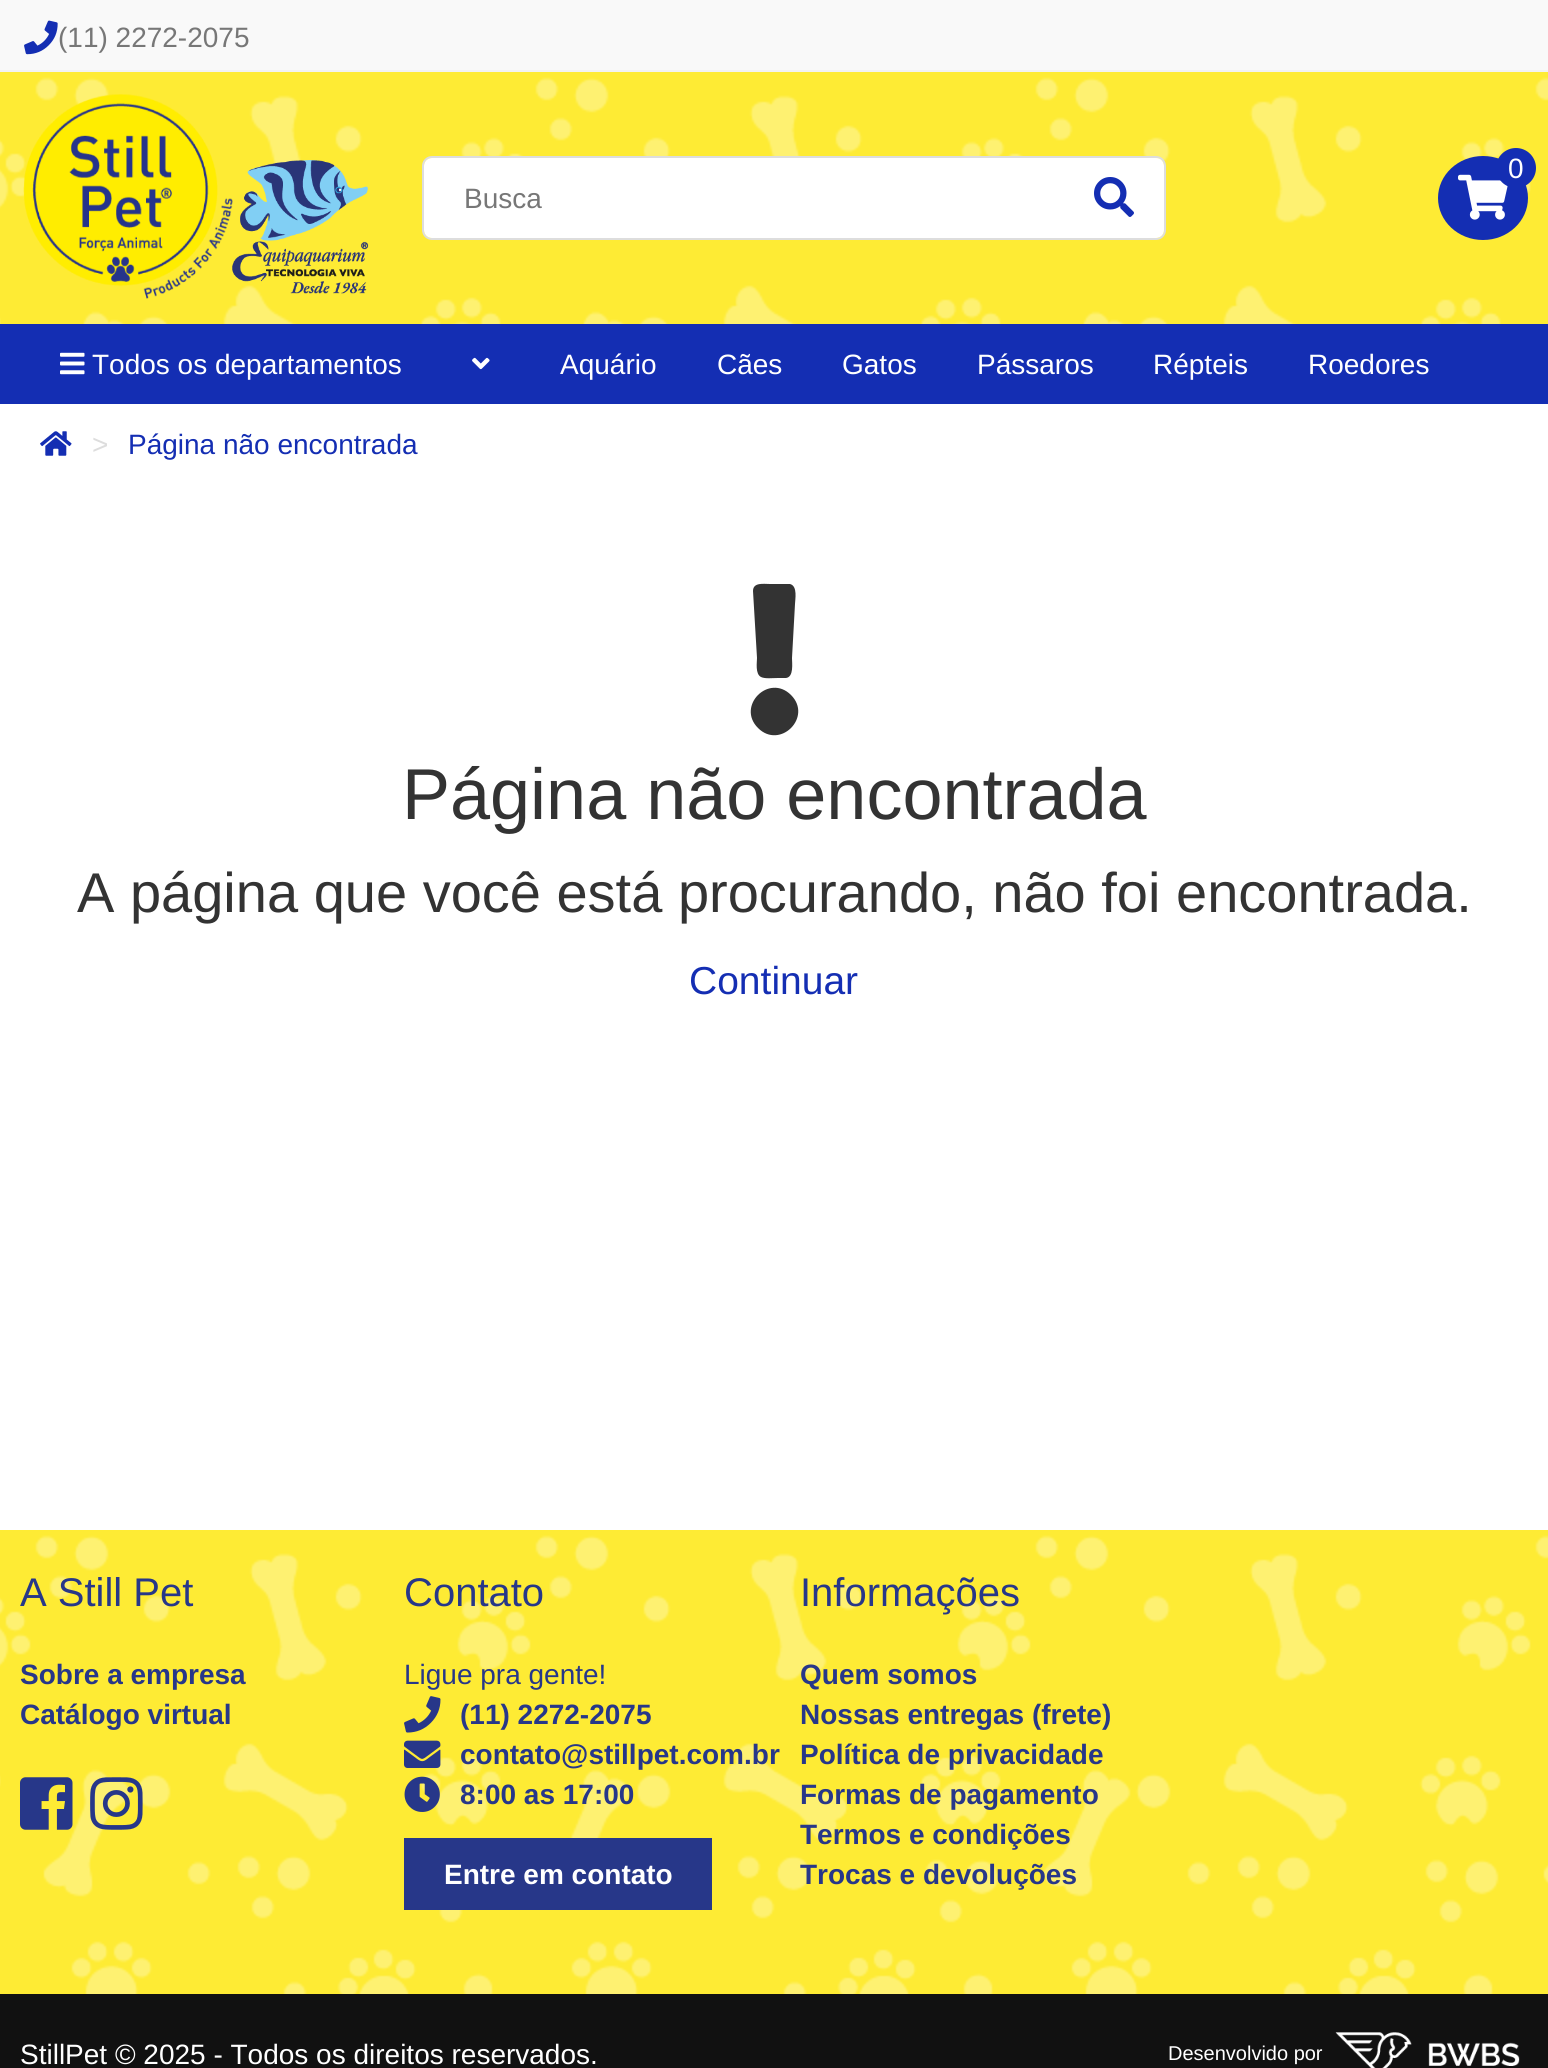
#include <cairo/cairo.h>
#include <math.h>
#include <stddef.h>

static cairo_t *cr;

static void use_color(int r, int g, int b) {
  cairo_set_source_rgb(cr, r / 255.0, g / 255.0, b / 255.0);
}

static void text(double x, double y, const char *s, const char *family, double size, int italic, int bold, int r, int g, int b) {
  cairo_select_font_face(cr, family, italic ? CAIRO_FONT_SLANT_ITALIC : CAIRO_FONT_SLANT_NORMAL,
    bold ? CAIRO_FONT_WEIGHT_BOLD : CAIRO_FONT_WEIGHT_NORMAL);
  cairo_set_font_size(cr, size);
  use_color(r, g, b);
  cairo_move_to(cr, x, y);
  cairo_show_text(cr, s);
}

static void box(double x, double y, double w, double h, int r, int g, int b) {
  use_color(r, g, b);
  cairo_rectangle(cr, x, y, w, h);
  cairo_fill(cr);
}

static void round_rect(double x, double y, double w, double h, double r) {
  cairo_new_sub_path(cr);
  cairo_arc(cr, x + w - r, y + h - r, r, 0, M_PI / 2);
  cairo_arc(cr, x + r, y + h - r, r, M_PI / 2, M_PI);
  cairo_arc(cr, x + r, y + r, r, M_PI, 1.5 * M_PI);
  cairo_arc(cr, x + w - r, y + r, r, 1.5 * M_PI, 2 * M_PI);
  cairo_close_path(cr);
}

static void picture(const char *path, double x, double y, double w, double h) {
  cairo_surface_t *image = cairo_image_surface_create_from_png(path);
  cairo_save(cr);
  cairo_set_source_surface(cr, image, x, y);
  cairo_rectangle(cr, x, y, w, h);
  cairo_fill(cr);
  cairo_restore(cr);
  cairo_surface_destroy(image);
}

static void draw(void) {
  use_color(255, 255, 255);
  cairo_paint(cr);
  box(0, 0, 1548, 70, 249, 249, 249);
  box(0, 70, 1548, 2, 242, 242, 242);
  picture("img_01.png", 24, 20, 34, 35);
  box(0, 72, 1548, 252, 254, 235, 52);
  picture("img_02.png", 0, 77, 1548, 247);
  picture("img_03.png", 23, 94, 346, 205);
  use_color(20, 46, 179);
  cairo_new_path(cr);
  cairo_move_to(cr, 1483, 156);
  cairo_curve_to(cr, 1508, 156, 1528, 175, 1528, 198);
  cairo_curve_to(cr, 1528, 221, 1508, 240, 1483, 240);
  cairo_curve_to(cr, 1458, 240, 1438, 221, 1438, 198);
  cairo_curve_to(cr, 1438, 175, 1458, 156, 1483, 156);
  cairo_close_path(cr);
  cairo_fill(cr);
  picture("img_04.png", 1458, 174, 50, 46);
  cairo_arc(cr, 1516, 168, 20, 0, 2 * M_PI);
  cairo_fill(cr);
  round_rect(423, 157, 742, 82, 9);
  use_color(221, 221, 221);
  cairo_stroke(cr);
  use_color(255, 255, 255);
  cairo_new_path(cr);
  cairo_move_to(cr, 432, 158);
  cairo_line_to(cr, 1064, 158);
  cairo_line_to(cr, 1064, 238);
  cairo_line_to(cr, 432, 238);
  cairo_curve_to(cr, 427.5, 238, 424, 234.5, 424, 230);
  cairo_line_to(cr, 424, 166);
  cairo_curve_to(cr, 424, 161.5, 427.5, 158, 432, 158);
  cairo_close_path(cr);
  cairo_fill(cr);
  cairo_new_path(cr);
  cairo_move_to(cr, 1064, 158);
  cairo_line_to(cr, 1156, 158);
  cairo_curve_to(cr, 1160.5, 158, 1164, 161.5, 1164, 166);
  cairo_line_to(cr, 1164, 230);
  cairo_curve_to(cr, 1164, 234.5, 1160.5, 238, 1156, 238);
  cairo_line_to(cr, 1064, 238);
  cairo_close_path(cr);
  cairo_fill(cr);
  picture("img_05.png", 1094, 177, 40, 40);
  box(0, 324, 1548, 80, 20, 46, 179);
  picture("img_06.png", 60, 352, 25, 23);
  picture("img_07.png", 472, 357, 18, 13);
  picture("img_08.png", 40, 431, 32, 25);
  use_color(51, 51, 51);
  cairo_new_path(cr);
  cairo_move_to(cr, 791, 695);
  cairo_curve_to(cr, 813, 717, 780, 750, 758, 728);
  cairo_curve_to(cr, 736, 706, 769, 673, 791, 695);
  cairo_close_path(cr);
  cairo_move_to(cr, 753, 591);
  cairo_curve_to(cr, 753, 582, 764, 584, 770, 584);
  cairo_line_to(cr, 790, 584);
  cairo_curve_to(cr, 798, 586, 795, 600, 795, 604);
  cairo_line_to(cr, 792, 658);
  cairo_curve_to(cr, 792, 663, 794, 677, 786, 678);
  cairo_line_to(cr, 778, 678);
  cairo_curve_to(cr, 773, 678, 765, 679, 761, 677);
  cairo_curve_to(cr, 755, 674, 757, 662, 757, 658);
  cairo_close_path(cr);
  cairo_fill(cr);
  box(0, 1530, 1548, 464, 254, 235, 52);
  picture("img_09.png", 0, 1535, 1548, 459);
  picture("img_10.png", 20, 1777, 53, 53);
  picture("img_11.png", 90, 1777, 53, 53);
  picture("img_12.png", 404, 1696, 37, 37);
  picture("img_13.png", 404, 1740, 37, 28);
  picture("img_14.png", 404, 1776, 36, 36);
  box(404, 1838, 308, 72, 39, 55, 137);
  box(0, 1994, 1548, 74, 17, 17, 17);
  picture("img_15.png", 1335, 2032, 185, 36);
  text(58, 47, "(11) 2272-2075", "Liberation Sans", 28, 0, 0, 119, 119, 119);
  text(1508, 178, "0", "Liberation Sans", 28, 0, 0, 255, 255, 255);
  text(464, 208, "Busca", "Liberation Sans", 28, 0, 0, 119, 119, 119);
  text(92, 374, "Todos os departamentos", "Liberation Sans", 28, 0, 0, 255, 255, 255);
  text(560, 374, "Aquário", "Liberation Sans", 28, 0, 0, 255, 255, 255);
  text(717, 374, "Cães", "Liberation Sans", 28, 0, 0, 255, 255, 255);
  text(842, 374, "Gatos", "Liberation Sans", 28, 0, 0, 255, 255, 255);
  text(977, 374, "Pássaros", "Liberation Sans", 28, 0, 0, 255, 255, 255);
  text(1153, 374, "Répteis", "Liberation Sans", 28, 0, 0, 255, 255, 255);
  text(1308, 374, "Roedores", "Liberation Sans", 28, 0, 0, 255, 255, 255);
  text(92, 454, ">", "Liberation Sans", 28, 0, 0, 221, 221, 221);
  text(128, 454, "Página não encontrada", "Liberation Sans", 28, 0, 0, 20, 46, 179);
  text(402, 819, "Página não encontrada", "Liberation Sans", 72, 0, 0, 51, 51, 51);
  text(77, 912, "A página que você está procurando, não foi encontrada.", "Liberation Sans", 56, 0, 0, 51, 51, 51);
  text(689, 994, "Continuar", "Liberation Sans", 39, 0, 0, 20, 46, 179);
  text(20, 1606, "A Still Pet", "Liberation Sans", 40, 0, 0, 39, 55, 137);
  text(20, 1684, "Sobre a empresa", "Liberation Sans", 28, 0, 1, 39, 55, 137);
  text(20, 1724, "Catálogo virtual", "Liberation Sans", 28, 0, 1, 39, 55, 137);
  text(404, 1606, "Contato", "Liberation Sans", 40, 0, 0, 39, 55, 137);
  text(404, 1684, "Ligue pra gente!", "Liberation Sans", 28, 0, 0, 39, 55, 137);
  text(460, 1724, "(11) 2272-2075", "Liberation Sans", 28, 0, 1, 39, 55, 137);
  text(460, 1764, "contato@stillpet.com.br", "Liberation Sans", 28, 0, 1, 39, 55, 137);
  text(460, 1804, "8:00 as 17:00", "Liberation Sans", 28, 0, 1, 39, 55, 137);
  text(444, 1884, "Entre em contato", "Liberation Sans", 28, 0, 1, 255, 255, 255);
  text(800, 1606, "Informações", "Liberation Sans", 40, 0, 0, 39, 55, 137);
  text(800, 1684, "Quem somos", "Liberation Sans", 28, 0, 1, 39, 55, 137);
  text(800, 1724, "Nossas entregas (frete)", "Liberation Sans", 28, 0, 1, 39, 55, 137);
  text(800, 1764, "Política de privacidade", "Liberation Sans", 28, 0, 1, 39, 55, 137);
  text(800, 1804, "Formas de pagamento", "Liberation Sans", 28, 0, 1, 39, 55, 137);
  text(800, 1844, "Termos e condições", "Liberation Sans", 28, 0, 1, 39, 55, 137);
  text(800, 1884, "Trocas e devoluções", "Liberation Sans", 28, 0, 1, 39, 55, 137);
  text(20, 2064, "StillPet © 2025 - Todos os direitos reservados.", "Liberation Sans", 28, 0, 0, 255, 255, 255);
  text(1168, 2060, "Desenvolvido por", "Liberation Sans", 20, 0, 0, 255, 255, 255);
}

int main(void) {
  cairo_surface_t *surface = cairo_image_surface_create(CAIRO_FORMAT_RGB24, 1548, 2068);
  cr = cairo_create(surface);
  cairo_font_options_t *options = cairo_font_options_create();
  cairo_font_options_set_hint_metrics(options, CAIRO_HINT_METRICS_OFF);
  cairo_font_options_set_hint_style(options, CAIRO_HINT_STYLE_NONE);
  cairo_set_font_options(cr, options);
  cairo_set_miter_limit(cr, 4);
  draw();
  cairo_surface_write_to_png(surface, "out.png");
  cairo_font_options_destroy(options);
  cairo_destroy(cr);
  cairo_surface_destroy(surface);
  return 0;
}
